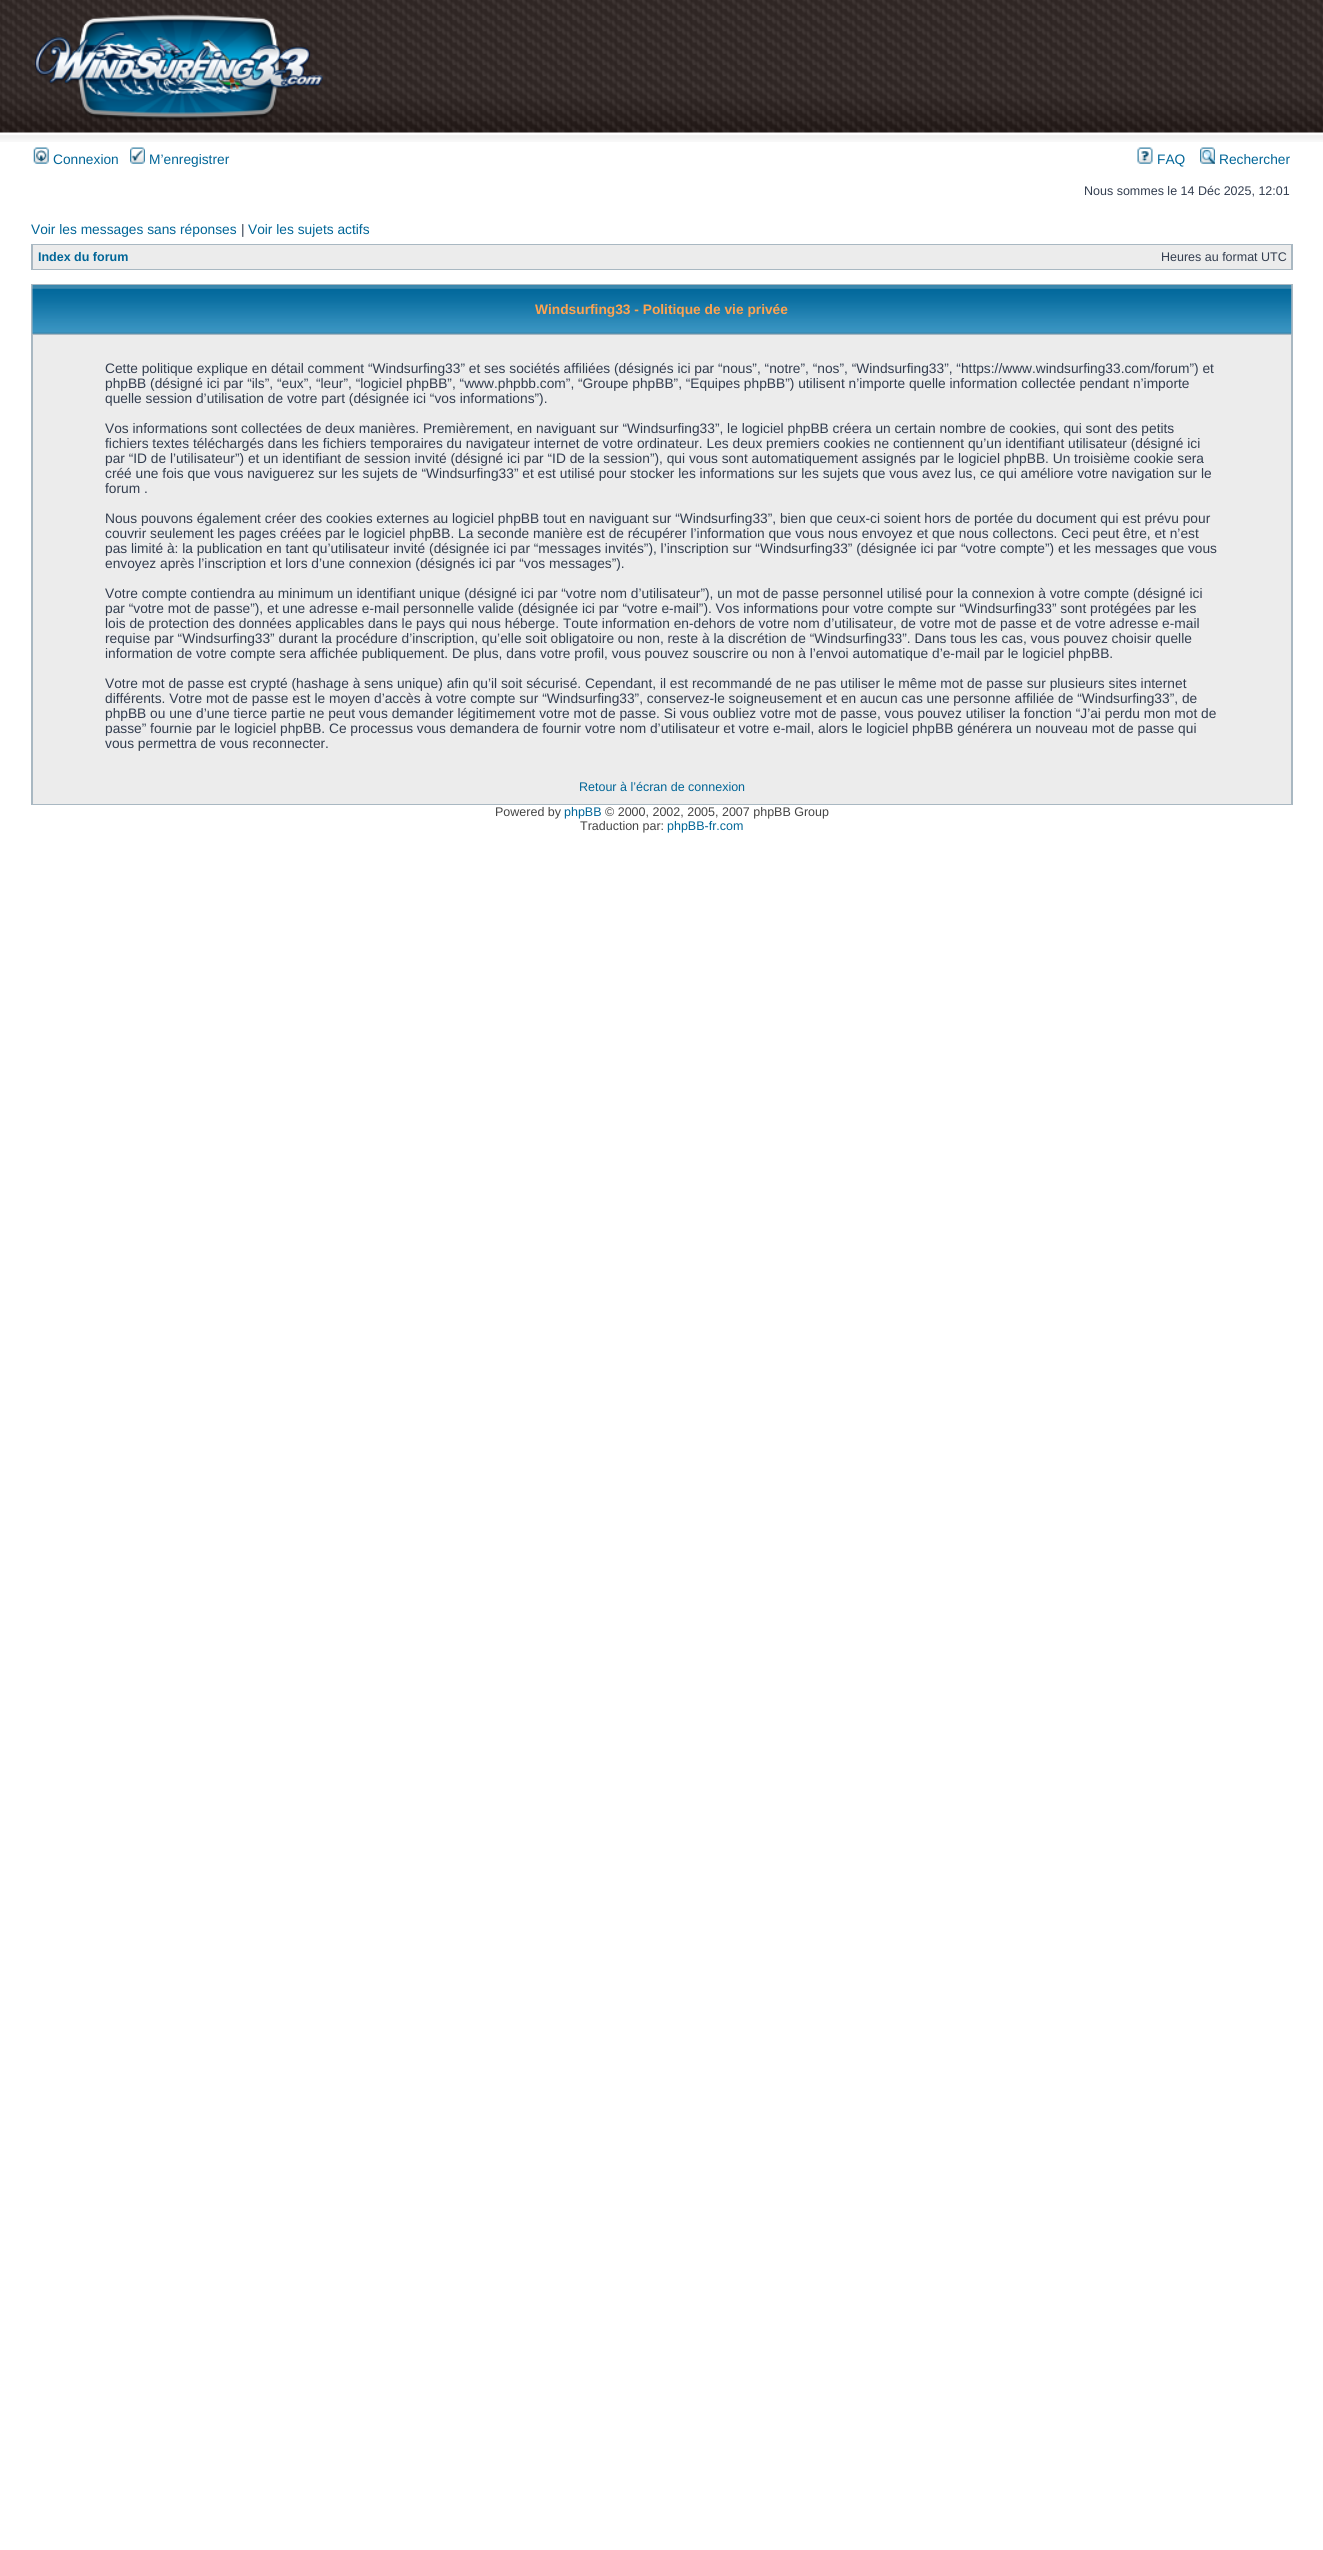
#include <cairo/cairo.h>
#include <math.h>
#include <stddef.h>

static cairo_t *cr;

static void use_color(int r, int g, int b) {
  cairo_set_source_rgb(cr, r / 255.0, g / 255.0, b / 255.0);
}

static void text(double x, double y, const char *s, const char *family, double size, int italic, int bold, int r, int g, int b) {
  cairo_select_font_face(cr, family, italic ? CAIRO_FONT_SLANT_ITALIC : CAIRO_FONT_SLANT_NORMAL,
    bold ? CAIRO_FONT_WEIGHT_BOLD : CAIRO_FONT_WEIGHT_NORMAL);
  cairo_set_font_size(cr, size);
  use_color(r, g, b);
  cairo_move_to(cr, x, y);
  cairo_show_text(cr, s);
}

static void box(double x, double y, double w, double h, int r, int g, int b) {
  use_color(r, g, b);
  cairo_rectangle(cr, x, y, w, h);
  cairo_fill(cr);
}

static void picture(const char *path, double x, double y, double w, double h) {
  cairo_surface_t *image = cairo_image_surface_create_from_png(path);
  cairo_save(cr);
  cairo_set_source_surface(cr, image, x, y);
  cairo_rectangle(cr, x, y, w, h);
  cairo_fill(cr);
  cairo_restore(cr);
  cairo_surface_destroy(image);
}

static void draw(void) {
  use_color(255, 255, 255);
  cairo_paint(cr);
  picture("img_01.png", 0, 0, 1323, 142);
  picture("img_02.png", 35, 14, 288, 107);
  picture("img_03.png", 33, 147, 16, 17);
  picture("img_04.png", 130, 147, 15, 17);
  picture("img_05.png", 1137, 147, 16, 17);
  picture("img_06.png", 1200, 147, 15, 17);
  box(31, 244, 1262, 26, 169, 184, 194);
  box(33, 245, 1258, 24, 236, 236, 236);
  box(31, 284, 1262, 521, 169, 184, 194);
  picture("img_07.png", 32, 285, 1260, 49);
  box(33, 335, 1258, 469, 236, 236, 236);
  text(53, 164, "Connexion", "Liberation Sans", 13.75, 0, 0, 0, 101, 151);
  text(149, 164, "M’enregistrer", "Liberation Sans", 13.75, 0, 0, 0, 101, 151);
  text(1157, 164, "FAQ", "Liberation Sans", 13.75, 0, 0, 0, 101, 151);
  text(1219, 164, "Rechercher", "Liberation Sans", 13.75, 0, 0, 0, 101, 151);
  text(1084, 195, "Nous sommes le 14 Déc 2025, 12:01", "Liberation Sans", 12.5, 0, 0, 50, 61, 79);
  text(31, 234, "Voir les messages sans réponses", "Liberation Sans", 13.75, 0, 0, 0, 101, 151);
  text(241, 234, "|", "Liberation Sans", 13.75, 0, 0, 50, 61, 79);
  text(248, 234, "Voir les sujets actifs", "Liberation Sans", 13.75, 0, 0, 0, 101, 151);
  text(38, 261, "Index du forum", "Liberation Sans", 12.5, 0, 1, 0, 101, 151);
  text(1161, 261, "Heures au format UTC", "Liberation Sans", 12.5, 0, 0, 50, 61, 79);
  text(535, 314, "Windsurfing33 - Politique de vie privée", "Liberation Sans", 13.75, 0, 1, 255, 163, 79);
  text(105, 373, "Cette politique explique en détail comment “Windsurfing33” et ses sociétés affiliées (désignés ici par “nous”, “notre”, “nos”, “Windsurfing33”, “https://www.windsurfing33.com/forum”) et", "Liberation Sans", 13.75, 0, 0, 50, 61, 79);
  text(105, 388, "phpBB (désigné ici par “ils”, “eux”, “leur”, “logiciel phpBB”, “www.phpbb.com”, “Groupe phpBB”, “Equipes phpBB”) utilisent n’importe quelle information collectée pendant n’importe", "Liberation Sans", 13.75, 0, 0, 50, 61, 79);
  text(105, 403, "quelle session d’utilisation de votre part (désignée ici “vos informations”).", "Liberation Sans", 13.75, 0, 0, 50, 61, 79);
  text(105, 433, "Vos informations sont collectées de deux manières. Premièrement, en naviguant sur “Windsurfing33”, le logiciel phpBB créera un certain nombre de cookies, qui sont des petits", "Liberation Sans", 13.75, 0, 0, 50, 61, 79);
  text(105, 448, "fichiers textes téléchargés dans les fichiers temporaires du navigateur internet de votre ordinateur. Les deux premiers cookies ne contiennent qu’un identifiant utilisateur (désigné ici", "Liberation Sans", 13.75, 0, 0, 50, 61, 79);
  text(105, 463, "par “ID de l’utilisateur”) et un identifiant de session invité (désigné ici par “ID de la session”), qui vous sont automatiquement assignés par le logiciel phpBB. Un troisième cookie sera", "Liberation Sans", 13.75, 0, 0, 50, 61, 79);
  text(105, 478, "créé une fois que vous naviguerez sur les sujets de “Windsurfing33” et est utilisé pour stocker les informations sur les sujets que vous avez lus, ce qui améliore votre navigation sur le", "Liberation Sans", 13.75, 0, 0, 50, 61, 79);
  text(105, 493, "forum .", "Liberation Sans", 13.75, 0, 0, 50, 61, 79);
  text(105, 523, "Nous pouvons également créer des cookies externes au logiciel phpBB tout en naviguant sur “Windsurfing33”, bien que ceux-ci soient hors de portée du document qui est prévu pour", "Liberation Sans", 13.75, 0, 0, 50, 61, 79);
  text(105, 538, "couvrir seulement les pages créées par le logiciel phpBB. La seconde manière est de récupérer l’information que vous nous envoyez et que nous collectons. Ceci peut être, et n’est", "Liberation Sans", 13.75, 0, 0, 50, 61, 79);
  text(105, 553, "pas limité à: la publication en tant qu’utilisateur invité (désignée ici par “messages invités”), l’inscription sur “Windsurfing33” (désignée ici par “votre compte”) et les messages que vous", "Liberation Sans", 13.75, 0, 0, 50, 61, 79);
  text(105, 568, "envoyez après l’inscription et lors d’une connexion (désignés ici par “vos messages”).", "Liberation Sans", 13.75, 0, 0, 50, 61, 79);
  text(105, 598, "Votre compte contiendra au minimum un identifiant unique (désigné ici par “votre nom d’utilisateur”), un mot de passe personnel utilisé pour la connexion à votre compte (désigné ici", "Liberation Sans", 13.75, 0, 0, 50, 61, 79);
  text(105, 613, "par “votre mot de passe”), et une adresse e-mail personnelle valide (désignée ici par “votre e-mail”). Vos informations pour votre compte sur “Windsurfing33” sont protégées par les", "Liberation Sans", 13.75, 0, 0, 50, 61, 79);
  text(105, 628, "lois de protection des données applicables dans le pays qui nous héberge. Toute information en-dehors de votre nom d’utilisateur, de votre mot de passe et de votre adresse e-mail", "Liberation Sans", 13.75, 0, 0, 50, 61, 79);
  text(105, 643, "requise par “Windsurfing33” durant la procédure d’inscription, qu’elle soit obligatoire ou non, reste à la discrétion de “Windsurfing33”. Dans tous les cas, vous pouvez choisir quelle", "Liberation Sans", 13.75, 0, 0, 50, 61, 79);
  text(105, 658, "information de votre compte sera affichée publiquement. De plus, dans votre profil, vous pouvez souscrire ou non à l’envoi automatique d’e-mail par le logiciel phpBB.", "Liberation Sans", 13.75, 0, 0, 50, 61, 79);
  text(105, 688, "Votre mot de passe est crypté (hashage à sens unique) afin qu’il soit sécurisé. Cependant, il est recommandé de ne pas utiliser le même mot de passe sur plusieurs sites internet", "Liberation Sans", 13.75, 0, 0, 50, 61, 79);
  text(105, 703, "différents. Votre mot de passe est le moyen d’accès à votre compte sur “Windsurfing33”, conservez-le soigneusement et en aucun cas une personne affiliée de “Windsurfing33”, de", "Liberation Sans", 13.75, 0, 0, 50, 61, 79);
  text(105, 718, "phpBB ou une d’une tierce partie ne peut vous demander légitimement votre mot de passe. Si vous oubliez votre mot de passe, vous pouvez utiliser la fonction “J’ai perdu mon mot de", "Liberation Sans", 13.75, 0, 0, 50, 61, 79);
  text(105, 733, "passe” fournie par le logiciel phpBB. Ce processus vous demandera de fournir votre nom d’utilisateur et votre e-mail, alors le logiciel phpBB générera un nouveau mot de passe qui", "Liberation Sans", 13.75, 0, 0, 50, 61, 79);
  text(105, 748, "vous permettra de vous reconnecter.", "Liberation Sans", 13.75, 0, 0, 50, 61, 79);
  text(579, 791, "Retour à l’écran de connexion", "Liberation Sans", 12.5, 0, 0, 0, 101, 151);
  text(495, 816, "Powered by", "Liberation Sans", 12.5, 0, 0, 68, 68, 68);
  text(564, 816, "phpBB", "Liberation Sans", 12.5, 0, 0, 0, 101, 151);
  text(605, 816, "© 2000, 2002, 2005, 2007 phpBB Group", "Liberation Sans", 12.5, 0, 0, 68, 68, 68);
  text(580, 830, "Traduction par:", "Liberation Sans", 12.5, 0, 0, 68, 68, 68);
  text(667, 830, "phpBB-fr.com", "Liberation Sans", 12.5, 0, 0, 0, 101, 151);
}

int main(void) {
  cairo_surface_t *surface = cairo_image_surface_create(CAIRO_FORMAT_RGB24, 1323, 2550);
  cr = cairo_create(surface);
  cairo_font_options_t *options = cairo_font_options_create();
  cairo_font_options_set_hint_metrics(options, CAIRO_HINT_METRICS_OFF);
  cairo_font_options_set_hint_style(options, CAIRO_HINT_STYLE_NONE);
  cairo_set_font_options(cr, options);
  cairo_set_miter_limit(cr, 4);
  draw();
  cairo_surface_write_to_png(surface, "out.png");
  cairo_font_options_destroy(options);
  cairo_destroy(cr);
  cairo_surface_destroy(surface);
  return 0;
}
